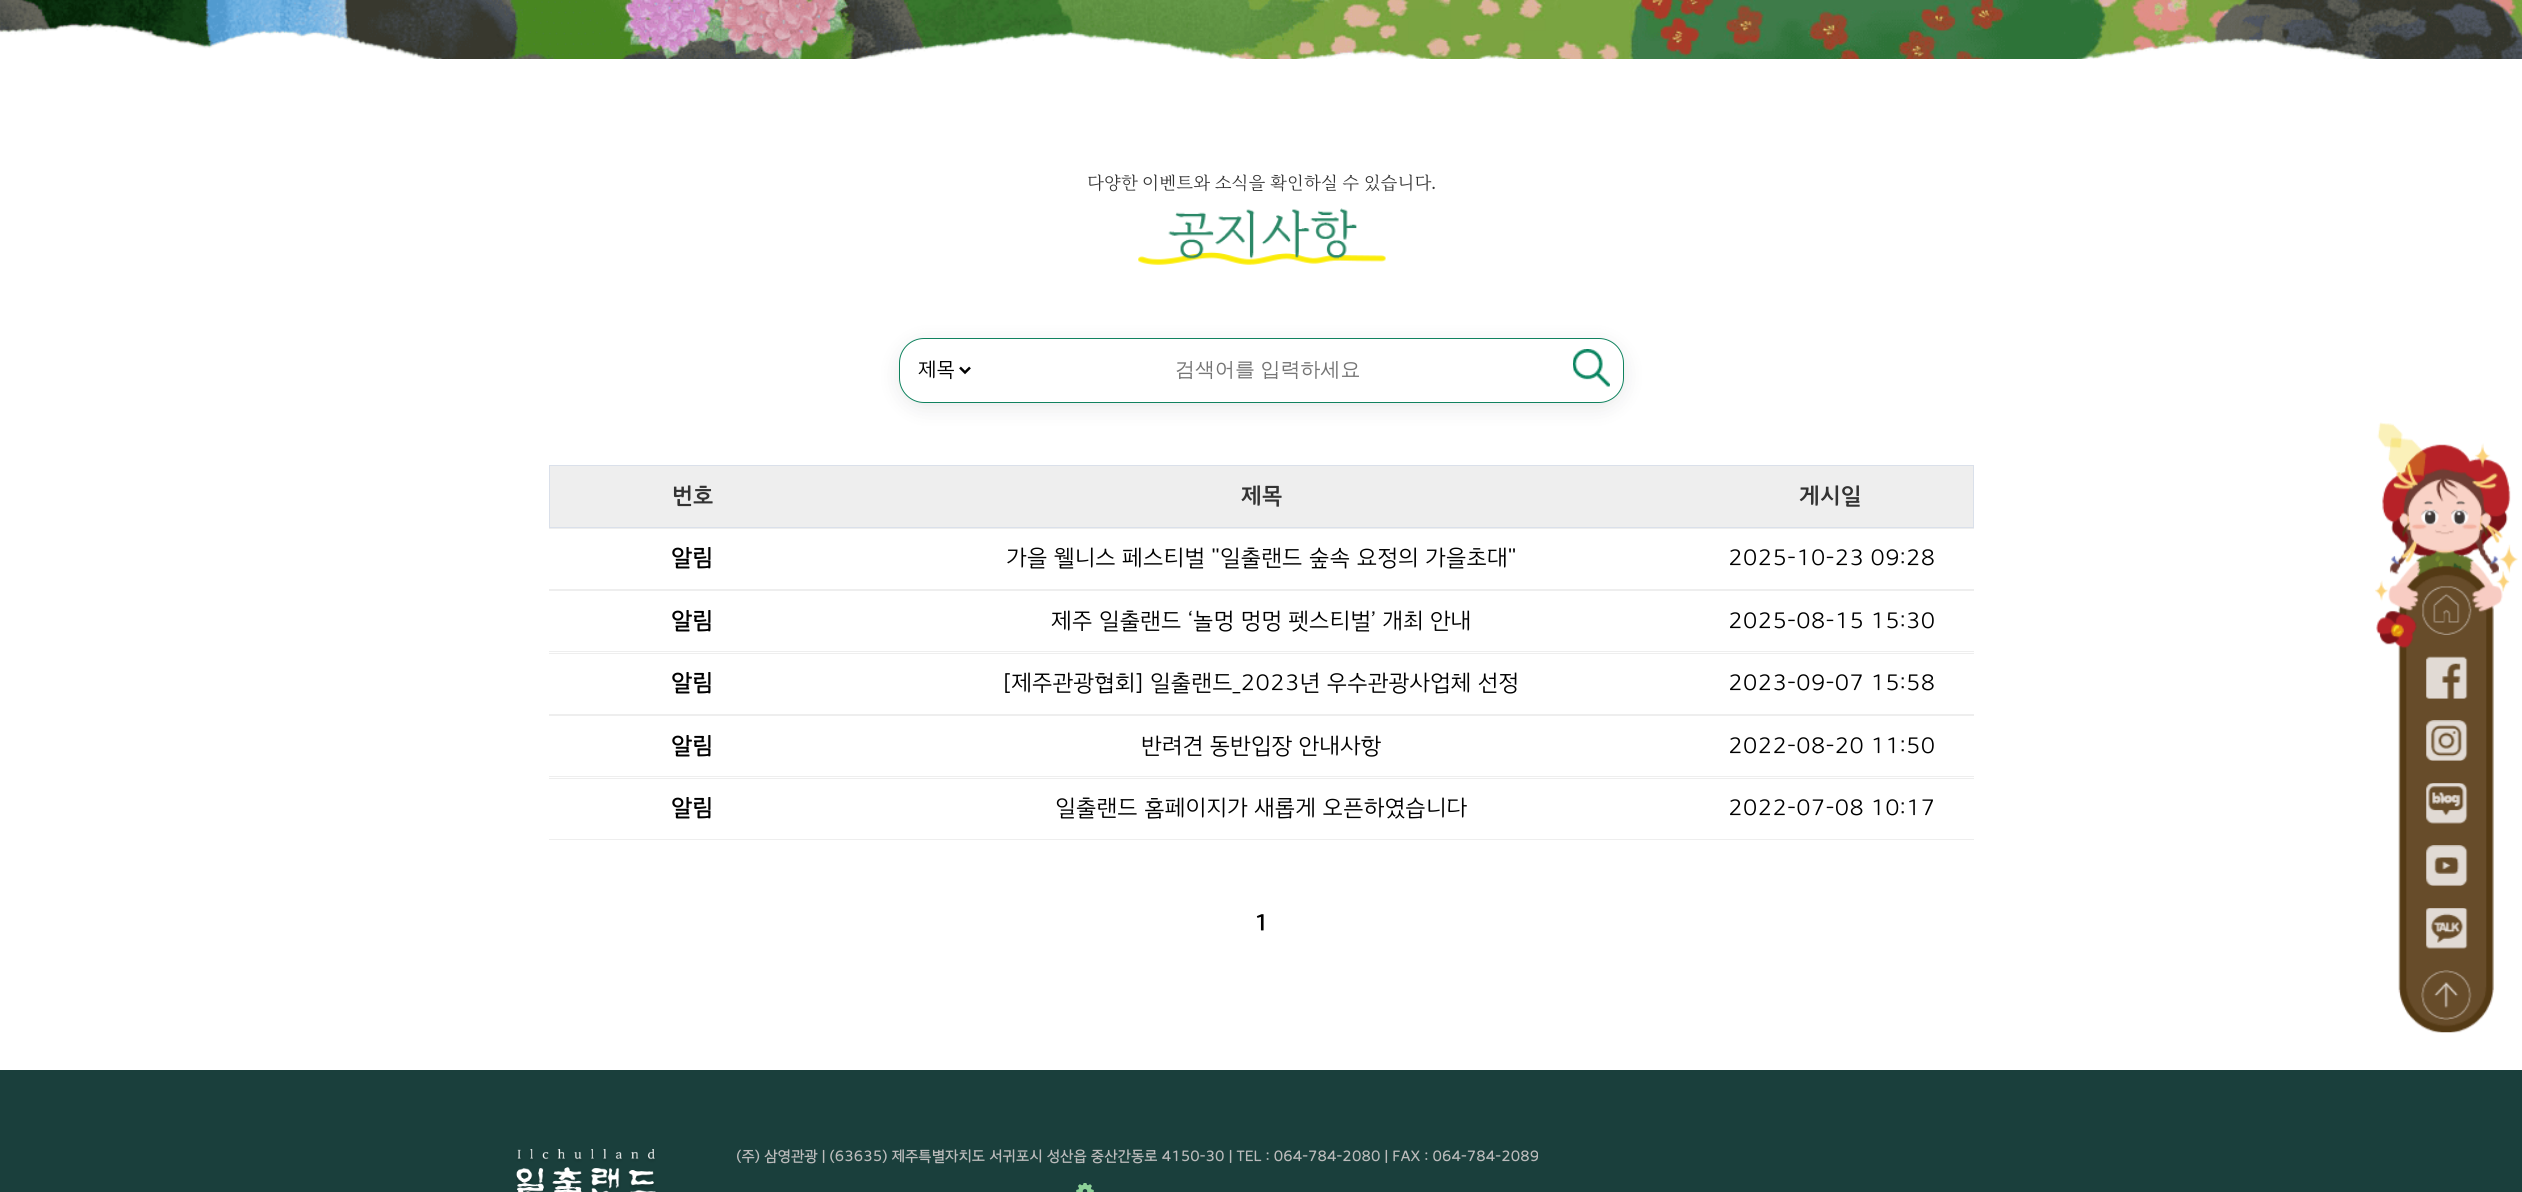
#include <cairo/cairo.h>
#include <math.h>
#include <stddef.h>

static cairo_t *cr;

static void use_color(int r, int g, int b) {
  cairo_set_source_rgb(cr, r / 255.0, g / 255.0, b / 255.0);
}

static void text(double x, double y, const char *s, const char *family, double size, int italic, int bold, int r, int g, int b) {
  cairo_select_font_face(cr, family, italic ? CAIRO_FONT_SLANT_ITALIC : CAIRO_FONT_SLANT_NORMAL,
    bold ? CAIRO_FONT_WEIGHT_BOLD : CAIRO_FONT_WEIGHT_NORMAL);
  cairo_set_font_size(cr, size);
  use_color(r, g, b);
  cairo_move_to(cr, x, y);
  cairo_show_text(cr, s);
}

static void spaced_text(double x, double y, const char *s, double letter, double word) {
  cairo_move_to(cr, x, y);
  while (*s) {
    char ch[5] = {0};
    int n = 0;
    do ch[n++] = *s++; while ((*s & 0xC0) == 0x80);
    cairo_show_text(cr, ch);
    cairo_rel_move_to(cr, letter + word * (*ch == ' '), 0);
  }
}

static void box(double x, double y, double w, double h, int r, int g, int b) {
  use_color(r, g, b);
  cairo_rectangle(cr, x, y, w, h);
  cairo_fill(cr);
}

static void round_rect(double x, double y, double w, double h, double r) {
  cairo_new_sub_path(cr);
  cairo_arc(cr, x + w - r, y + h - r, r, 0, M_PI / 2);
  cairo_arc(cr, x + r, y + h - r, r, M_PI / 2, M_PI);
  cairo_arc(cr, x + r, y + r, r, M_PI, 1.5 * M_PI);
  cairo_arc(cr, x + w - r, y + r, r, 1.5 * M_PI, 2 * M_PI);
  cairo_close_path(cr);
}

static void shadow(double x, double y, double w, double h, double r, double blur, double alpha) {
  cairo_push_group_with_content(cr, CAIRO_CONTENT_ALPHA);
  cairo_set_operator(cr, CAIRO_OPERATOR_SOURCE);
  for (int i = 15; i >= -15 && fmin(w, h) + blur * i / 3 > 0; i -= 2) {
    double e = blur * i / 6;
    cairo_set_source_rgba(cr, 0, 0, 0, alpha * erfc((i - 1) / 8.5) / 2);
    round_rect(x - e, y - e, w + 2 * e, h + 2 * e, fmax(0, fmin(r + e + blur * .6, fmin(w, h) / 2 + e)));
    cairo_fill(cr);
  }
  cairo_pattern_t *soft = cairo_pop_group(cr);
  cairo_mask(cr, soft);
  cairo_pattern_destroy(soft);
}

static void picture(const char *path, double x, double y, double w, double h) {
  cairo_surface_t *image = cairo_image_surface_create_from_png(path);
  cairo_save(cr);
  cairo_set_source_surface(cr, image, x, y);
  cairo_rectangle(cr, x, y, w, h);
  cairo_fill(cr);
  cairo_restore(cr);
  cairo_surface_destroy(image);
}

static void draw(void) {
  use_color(255, 255, 255);
  cairo_paint(cr);
  picture("img_01.png", 0, 0, 2522, 59);
  picture("img_02.png", 1138, 208, 248, 57);
  cairo_save(cr);
  cairo_set_fill_rule(cr, CAIRO_FILL_RULE_EVEN_ODD);
  cairo_new_path(cr);
  cairo_move_to(cr, 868, 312);
  cairo_line_to(cr, 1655, 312);
  cairo_line_to(cr, 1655, 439);
  cairo_line_to(cr, 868, 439);
  cairo_close_path(cr);
  cairo_move_to(cr, 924, 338);
  cairo_line_to(cr, 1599, 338);
  cairo_curve_to(cr, 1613, 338, 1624, 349, 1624, 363);
  cairo_line_to(cr, 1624, 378);
  cairo_curve_to(cr, 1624, 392, 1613, 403, 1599, 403);
  cairo_line_to(cr, 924, 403);
  cairo_curve_to(cr, 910, 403, 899, 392, 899, 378);
  cairo_line_to(cr, 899, 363);
  cairo_curve_to(cr, 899, 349, 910, 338, 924, 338);
  cairo_close_path(cr);
  cairo_clip(cr);
  use_color(17, 17, 26);
  shadow(899, 343, 725, 65, 25, 10, 0.1);
  cairo_restore(cr);
  round_rect(899.5, 338.5, 724, 64, 24.5);
  use_color(16, 130, 94);
  cairo_set_line_width(cr, 1);
  cairo_stroke(cr);
  cairo_new_path(cr);
  cairo_move_to(cr, 960, 367.5);
  cairo_line_to(cr, 965, 372.5);
  cairo_line_to(cr, 970, 367.5);
  use_color(0, 0, 0);
  cairo_set_line_width(cr, 2.5);
  cairo_stroke(cr);
  picture("img_03.png", 1573, 349, 37, 38);
  use_color(238, 238, 238);
  cairo_rectangle(cr, 549.5, 465.5, 1424, 62);
  cairo_fill_preserve(cr);
  use_color(218, 224, 234);
  cairo_set_line_width(cr, 1);
  cairo_stroke(cr);
  box(549, 528, 1425, 1, 238, 238, 238);
  box(549, 589, 1425, 2, 238, 238, 238);
  box(549, 651, 1425, 1, 238, 238, 238);
  box(549, 653, 1425, 1, 238, 238, 238);
  box(549, 714, 1425, 2, 238, 238, 238);
  box(549, 776, 1425, 1, 238, 238, 238);
  box(549, 778, 1425, 1, 238, 238, 238);
  box(549, 839, 1425, 1, 238, 238, 238);
  picture("img_04.png", 2375, 422, 143, 611);
  picture("img_05.png", 2422, 586, 50, 49);
  picture("img_06.png", 2426, 656, 42, 43);
  picture("img_07.png", 2426, 720, 42, 41);
  picture("img_08.png", 2426, 783, 42, 41);
  picture("img_09.png", 2426, 845, 42, 41);
  picture("img_10.png", 2426, 908, 42, 41);
  picture("img_11.png", 2421, 970, 51, 50);
  box(0, 1070, 2522, 122, 26, 63, 60);
  picture("img_12.png", 516, 1149, 140, 43);
  picture("img_13.png", 1076, 1183, 18, 9);
  cairo_select_font_face(cr, "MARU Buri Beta", CAIRO_FONT_SLANT_NORMAL, CAIRO_FONT_WEIGHT_NORMAL);
  cairo_set_font_size(cr, 17.5);
  use_color(51, 51, 51);
  spaced_text(1087, 188, "다양한 이벤트와 소식을 확인하실 수 있습니다.", 0, -0.5);
  text(918, 376, "제목", "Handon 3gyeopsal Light", 20, 0, 0, 0, 0, 0);
  cairo_select_font_face(cr, "WenQuanYi Zen Hei Medium", CAIRO_FONT_SLANT_NORMAL, CAIRO_FONT_WEIGHT_NORMAL);
  use_color(117, 117, 117);
  spaced_text(1175, 376, "검색어를 입력하세요", 0, -0.5);
  text(672, 503, "번호", "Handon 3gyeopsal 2", 22.5, 0, 1, 51, 51, 51);
  text(1241, 503, "제목", "Handon 3gyeopsal 2", 22.5, 0, 1, 51, 51, 51);
  text(1799, 503, "게시일", "Handon 3gyeopsal 2", 22.5, 0, 1, 51, 51, 51);
  text(671, 565, "알림", "Handon 3gyeopsal", 22.5, 0, 1, 0, 0, 0);
  text(1006, 565, "가을 웰니스 페스티벌 \"일출랜드 숲속 요정의 가을초대\"", "Handon 3gyeopsal Light", 22.5, 0, 0, 0, 0, 0);
  text(1728, 565, "2025-10-23 09:28", "Handon 3gyeopsal Light", 22.5, 0, 0, 0, 0, 0);
  text(671, 628, "알림", "Handon 3gyeopsal", 22.5, 0, 1, 0, 0, 0);
  text(1051, 628, "제주 일출랜드 ‘놀멍 멍멍 펫스티벌’ 개최 안내", "Handon 3gyeopsal Light", 22.5, 0, 0, 0, 0, 0);
  text(1728, 628, "2025-08-15 15:30", "Handon 3gyeopsal Light", 22.5, 0, 0, 0, 0, 0);
  text(671, 690, "알림", "Handon 3gyeopsal", 22.5, 0, 1, 0, 0, 0);
  text(1003, 690, "[제주관광협회] 일출랜드_2023년 우수관광사업체 선정", "Handon 3gyeopsal Light", 22.5, 0, 0, 0, 0, 0);
  text(1728, 690, "2023-09-07 15:58", "Handon 3gyeopsal Light", 22.5, 0, 0, 0, 0, 0);
  text(671, 753, "알림", "Handon 3gyeopsal", 22.5, 0, 1, 0, 0, 0);
  text(1141, 753, "반려견 동반입장 안내사항", "Handon 3gyeopsal Light", 22.5, 0, 0, 0, 0, 0);
  text(1728, 753, "2022-08-20 11:50", "Handon 3gyeopsal Light", 22.5, 0, 0, 0, 0, 0);
  text(671, 815, "알림", "Handon 3gyeopsal", 22.5, 0, 1, 0, 0, 0);
  text(1055, 815, "일출랜드 홈페이지가 새롭게 오픈하였습니다", "Handon 3gyeopsal Light", 22.5, 0, 0, 0, 0, 0);
  text(1728, 815, "2022-07-08 10:17", "Handon 3gyeopsal Light", 22.5, 0, 0, 0, 0, 0);
  text(1254, 930, "1", "Handon 3gyeopsal 2", 22.5, 0, 1, 0, 0, 0);
  text(736, 1161, "(주) 삼영관광 | (63635) 제주특별자치도 서귀포시 성산읍 중산간동로 4150-30 | TEL : 064-784-2080 | FAX : 064-784-2089", "Handon 3gyeopsal", 14.52, 0, 1, 187, 187, 187);
}

int main(void) {
  cairo_surface_t *surface = cairo_image_surface_create(CAIRO_FORMAT_RGB24, 2522, 1192);
  cr = cairo_create(surface);
  cairo_font_options_t *options = cairo_font_options_create();
  cairo_font_options_set_hint_metrics(options, CAIRO_HINT_METRICS_OFF);
  cairo_font_options_set_hint_style(options, CAIRO_HINT_STYLE_NONE);
  cairo_set_font_options(cr, options);
  cairo_set_miter_limit(cr, 4);
  draw();
  cairo_surface_write_to_png(surface, "out.png");
  cairo_font_options_destroy(options);
  cairo_destroy(cr);
  cairo_surface_destroy(surface);
  return 0;
}
